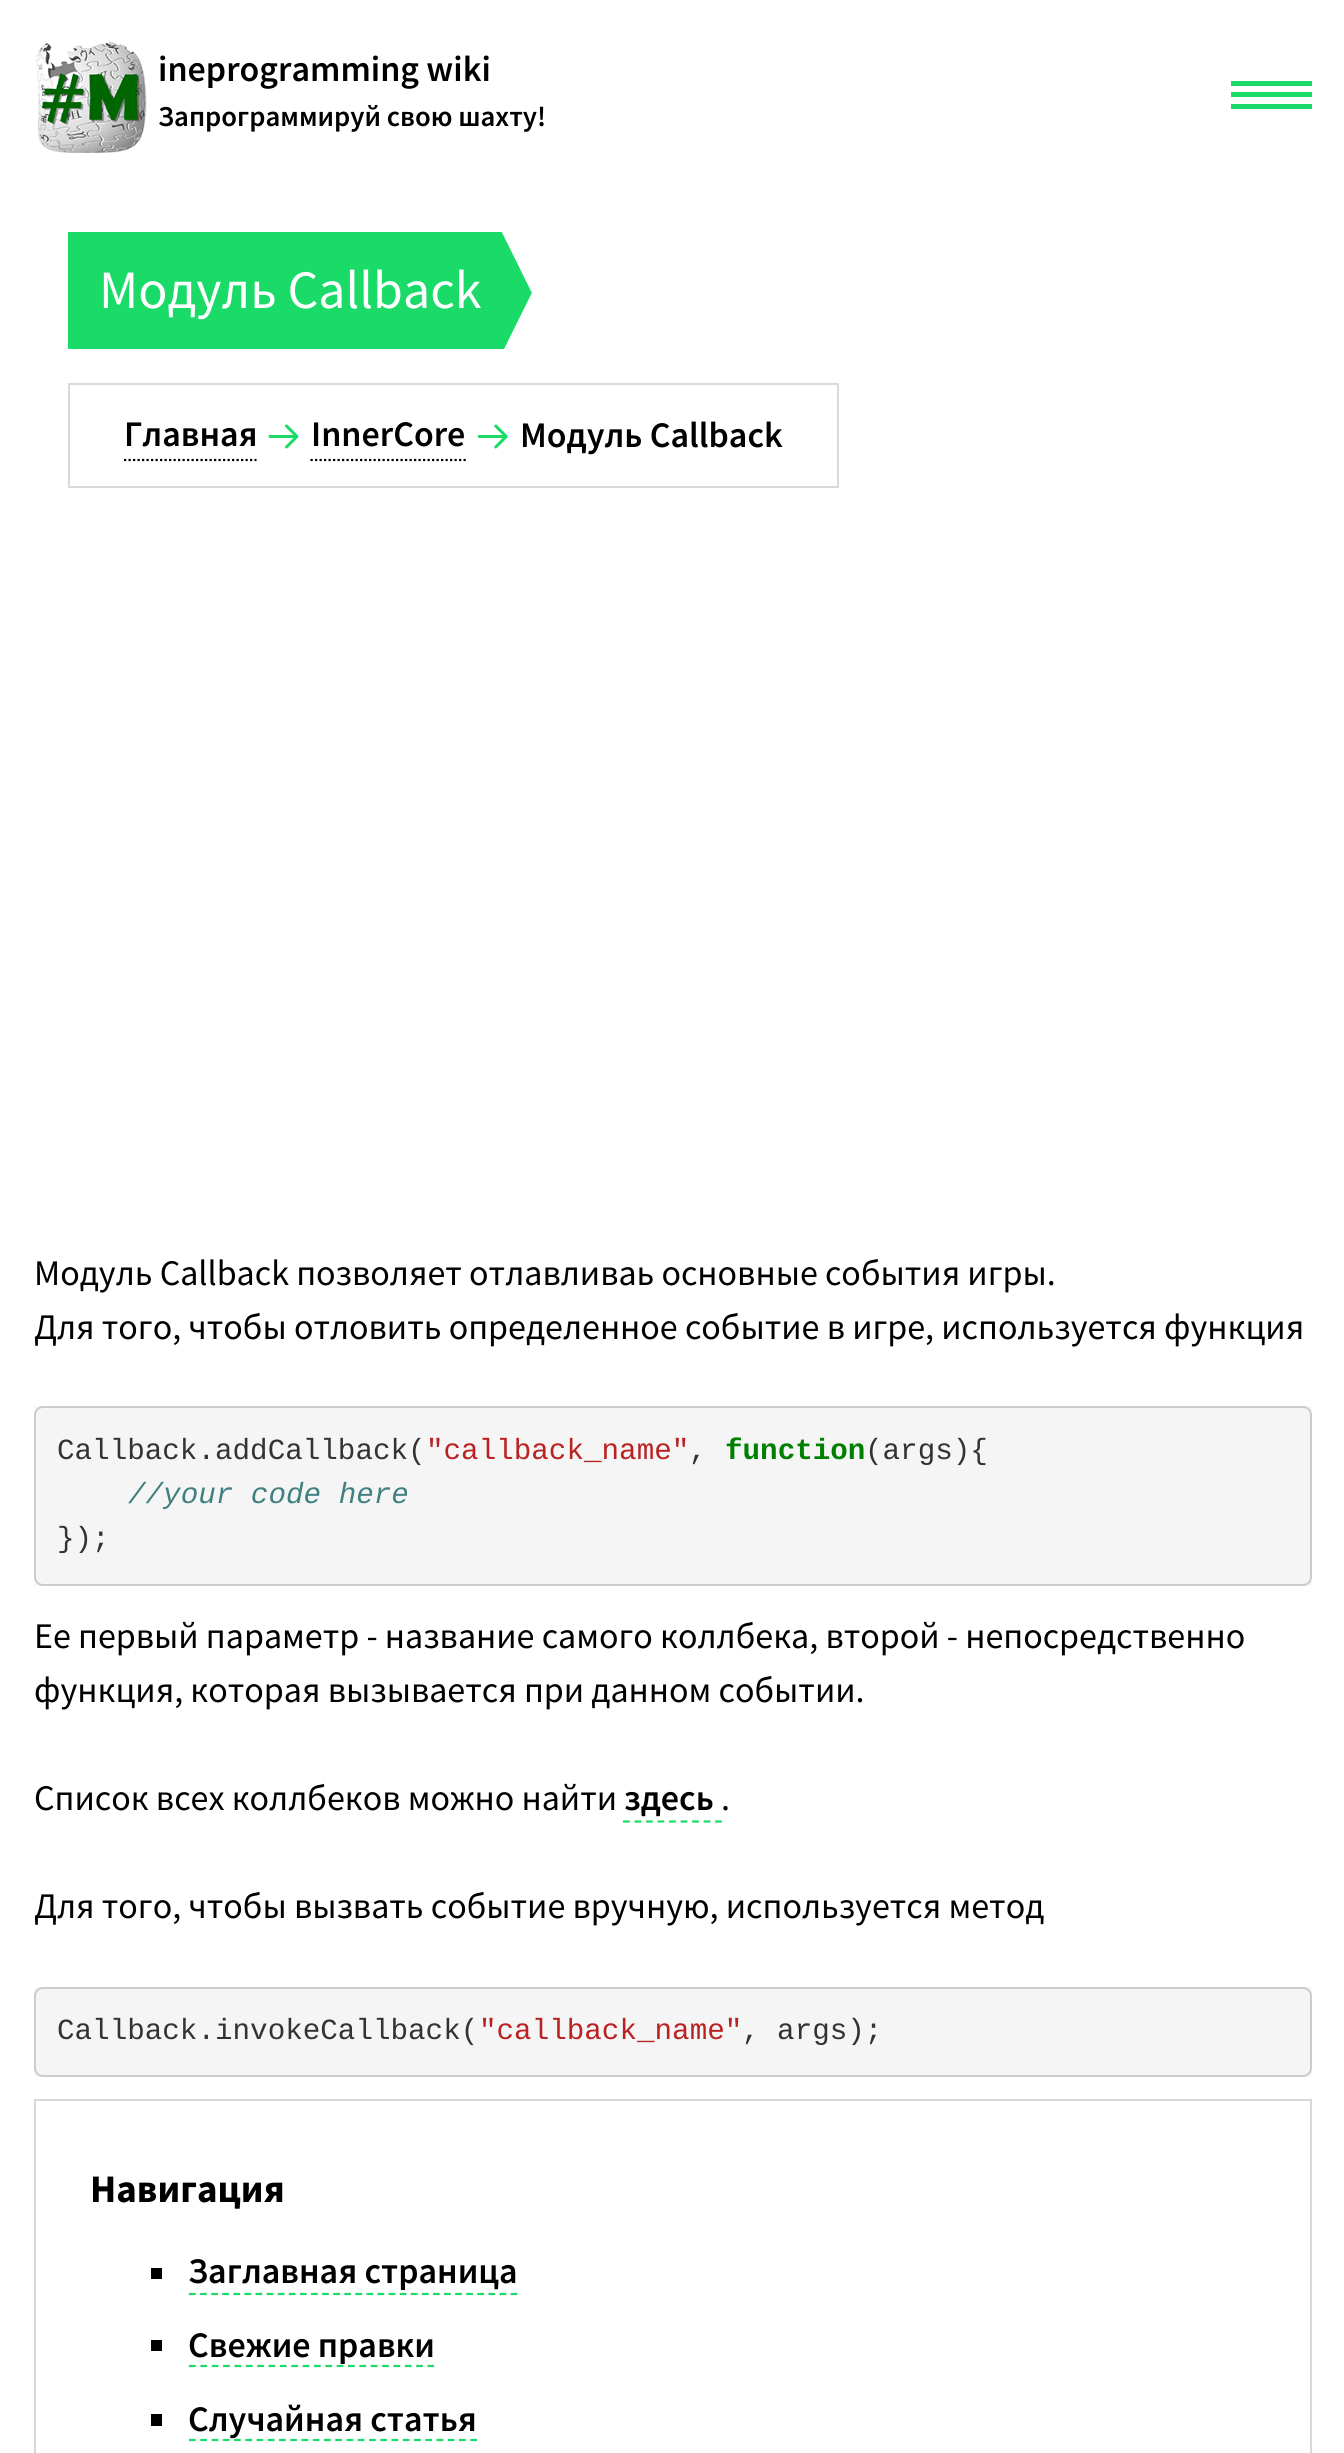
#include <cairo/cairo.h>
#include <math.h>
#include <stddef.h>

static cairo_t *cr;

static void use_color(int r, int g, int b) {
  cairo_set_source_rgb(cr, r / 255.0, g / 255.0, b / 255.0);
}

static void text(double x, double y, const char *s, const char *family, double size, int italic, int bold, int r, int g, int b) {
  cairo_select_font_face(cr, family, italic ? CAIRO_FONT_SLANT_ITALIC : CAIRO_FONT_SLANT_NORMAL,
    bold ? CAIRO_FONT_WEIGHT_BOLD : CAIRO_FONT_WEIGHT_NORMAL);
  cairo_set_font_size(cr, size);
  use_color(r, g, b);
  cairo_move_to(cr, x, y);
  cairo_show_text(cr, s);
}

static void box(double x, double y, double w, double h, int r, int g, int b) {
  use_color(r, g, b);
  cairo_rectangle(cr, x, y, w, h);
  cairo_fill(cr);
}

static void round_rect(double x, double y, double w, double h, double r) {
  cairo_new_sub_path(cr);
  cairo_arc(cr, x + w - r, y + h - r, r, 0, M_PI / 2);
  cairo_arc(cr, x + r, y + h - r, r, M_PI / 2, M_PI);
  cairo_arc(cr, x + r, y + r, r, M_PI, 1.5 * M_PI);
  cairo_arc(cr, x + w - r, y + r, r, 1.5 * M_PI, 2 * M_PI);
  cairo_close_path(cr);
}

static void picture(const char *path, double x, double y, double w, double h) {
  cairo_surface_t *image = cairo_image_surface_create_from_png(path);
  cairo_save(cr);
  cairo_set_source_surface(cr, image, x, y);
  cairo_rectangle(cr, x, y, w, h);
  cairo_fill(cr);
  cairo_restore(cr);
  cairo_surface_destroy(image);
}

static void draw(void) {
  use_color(255, 255, 255);
  cairo_paint(cr);
  picture("img_01.png", 36, 41, 111, 112);
  box(1231, 92, 81, 5, 27, 219, 104);
  box(1231, 81, 81, 5, 27, 219, 104);
  box(1231, 104, 81, 5, 27, 219, 104);
  box(68, 232, 464, 117, 27, 219, 104);
  cairo_save(cr);
  cairo_rectangle(cr, 68, 232, 495, 117);
  cairo_clip(cr);
  use_color(255, 255, 255);
  cairo_new_path(cr);
  cairo_move_to(cr, 436, 99);
  cairo_line_to(cr, 706, 99);
  cairo_line_to(cr, 572, 374);
  cairo_close_path(cr);
  cairo_fill(cr);
  cairo_new_path(cr);
  cairo_move_to(cr, 706, 486);
  cairo_line_to(cr, 436, 486);
  cairo_line_to(cr, 572, 212);
  cairo_close_path(cr);
  cairo_fill(cr);
  cairo_restore(cr);
  cairo_rectangle(cr, 69, 384, 769, 103);
  use_color(217, 217, 217);
  cairo_stroke(cr);
  cairo_new_path(cr);
  cairo_move_to(cr, 124, 460);
  cairo_line_to(cr, 256.5, 460);
  use_color(0, 0, 0);
  cairo_set_line_width(cr, 2.2);
  cairo_set_dash(cr, (double[]){2.25, 2.25}, 2, 0);
  cairo_stroke(cr);
  picture("img_02.png", 268, 424, 31, 25);
  cairo_new_path(cr);
  cairo_move_to(cr, 310.5, 460);
  cairo_line_to(cr, 466, 460);
  cairo_stroke(cr);
  picture("img_03.png", 477, 424, 31, 25);
  box(34, 1406, 1278, 180, 248, 248, 248);
  use_color(245, 245, 245);
  round_rect(35, 1407, 1276, 178, 8);
  cairo_fill_preserve(cr);
  use_color(204, 204, 204);
  cairo_set_line_width(cr, 2);
  cairo_set_dash(cr, NULL, 0, 0);
  cairo_stroke(cr);
  cairo_new_path(cr);
  cairo_move_to(cr, 623, 1821.5);
  cairo_line_to(cr, 722, 1821.5);
  use_color(27, 219, 104);
  cairo_set_line_width(cr, 2.2);
  cairo_set_dash(cr, (double[]){6.75, 4.77}, 2, 0);
  cairo_stroke(cr);
  box(34, 1987, 1278, 90, 248, 248, 248);
  use_color(245, 245, 245);
  round_rect(35, 1988, 1276, 88, 8);
  cairo_fill_preserve(cr);
  use_color(204, 204, 204);
  cairo_set_line_width(cr, 2);
  cairo_set_dash(cr, NULL, 0, 0);
  cairo_stroke(cr);
  cairo_rectangle(cr, 35, 2100, 1276, 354);
  use_color(217, 217, 217);
  cairo_stroke(cr);
  box(151, 2268, 11, 11, 0, 0, 0);
  cairo_new_path(cr);
  cairo_move_to(cr, 189, 2294);
  cairo_line_to(cr, 517.5, 2294);
  use_color(27, 219, 104);
  cairo_set_line_width(cr, 2.2);
  cairo_set_dash(cr, (double[]){6.75, 4.34}, 2, 0);
  cairo_stroke(cr);
  box(151, 2340, 11, 11, 0, 0, 0);
  cairo_new_path(cr);
  cairo_move_to(cr, 189, 2366);
  cairo_line_to(cr, 434, 2366);
  use_color(27, 219, 104);
  cairo_set_dash(cr, (double[]){6.75, 4.61}, 2, 0);
  cairo_stroke(cr);
  box(151, 2414, 11, 12, 0, 0, 0);
  cairo_new_path(cr);
  cairo_move_to(cr, 189, 2440);
  cairo_line_to(cr, 477, 2440);
  use_color(27, 219, 104);
  cairo_set_dash(cr, (double[]){6.75, 4.5}, 2, 0);
  cairo_stroke(cr);
  text(158, 81, "ineprogramming wiki", "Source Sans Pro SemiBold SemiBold", 36, 0, 0, 0, 0, 0);
  text(158, 126, "Запрограммируй свою шахту!", "Source Sans Pro SemiBold SemiBold", 28.75, 0, 0, 0, 0, 0);
  text(99, 308, "Модуль Callback", "Source Sans Pro", 54, 0, 0, 255, 255, 255);
  text(124, 446, "Главная", "Source Sans Pro SemiBold SemiBold", 36, 0, 0, 0, 0, 0);
  text(311, 446, "InnerCore", "Source Sans Pro SemiBold SemiBold", 36, 0, 0, 0, 0, 0);
  text(520, 447, "Модуль Callback", "Source Sans Pro SemiBold SemiBold", 36, 0, 0, 0, 0, 0);
  text(34, 1285, "Модуль Callback позволяет отлавливаь основные события игры.", "Source Sans Pro", 36, 0, 0, 0, 0, 0);
  text(34, 1339, "Для того, чтобы отловить определенное событие в игре, используется функция", "Source Sans Pro", 36, 0, 0, 0, 0, 0);
  text(57, 1459, "Callback.addCallback(", "Liberation Mono", 29.25, 0, 0, 51, 51, 51);
  text(426, 1459, "\"callback_name\"", "Liberation Mono", 29.25, 0, 0, 186, 33, 33);
  text(689, 1459, ",", "Liberation Mono", 29.25, 0, 0, 51, 51, 51);
  text(725, 1459, "function", "Liberation Mono", 29.25, 0, 1, 0, 128, 0);
  text(865, 1459, "(args){", "Liberation Mono", 29.25, 0, 0, 51, 51, 51);
  text(128, 1503, "//your code here", "Liberation Mono", 29.25, 1, 0, 64, 128, 128);
  text(57, 1547, "});", "Liberation Mono", 29.25, 0, 0, 51, 51, 51);
  text(34, 1648, "Ее первый параметр - название самого коллбека, второй - непосредственно", "Source Sans Pro", 36, 0, 0, 0, 0, 0);
  text(34, 1702, "функция, которая вызывается при данном событии.", "Source Sans Pro", 36, 0, 0, 0, 0, 0);
  text(34, 1810, "Список всех коллбеков можно найти", "Source Sans Pro", 36, 0, 0, 0, 0, 0);
  text(624, 1810, "здесь", "Source Sans Pro SemiBold SemiBold", 36, 0, 0, 0, 0, 0);
  text(721, 1810, ".", "Source Sans Pro", 36, 0, 0, 0, 0, 0);
  text(34, 1918, "Для того, чтобы вызвать событие вручную, используется метод", "Source Sans Pro", 36, 0, 0, 0, 0, 0);
  text(57, 2039, "Callback.invokeCallback(", "Liberation Mono", 29.25, 0, 0, 51, 51, 51);
  text(479, 2039, "\"callback_name\"", "Liberation Mono", 29.25, 0, 0, 186, 33, 33);
  text(742, 2039, ", args);", "Liberation Mono", 29.25, 0, 0, 51, 51, 51);
  text(90, 2202, "Навигация", "Source Sans Pro", 39, 0, 1, 0, 0, 0);
  text(188, 2283, "Заглавная страница", "Source Sans Pro SemiBold SemiBold", 36, 0, 0, 0, 0, 0);
  text(188, 2357, "Свежие правки", "Source Sans Pro SemiBold SemiBold", 36, 0, 0, 0, 0, 0);
  text(188, 2431, "Случайная статья", "Source Sans Pro SemiBold SemiBold", 36, 0, 0, 0, 0, 0);
}

int main(void) {
  cairo_surface_t *surface = cairo_image_surface_create(CAIRO_FORMAT_RGB24, 1344, 2453);
  cr = cairo_create(surface);
  cairo_font_options_t *options = cairo_font_options_create();
  cairo_font_options_set_hint_metrics(options, CAIRO_HINT_METRICS_OFF);
  cairo_font_options_set_hint_style(options, CAIRO_HINT_STYLE_NONE);
  cairo_set_font_options(cr, options);
  cairo_set_miter_limit(cr, 4);
  draw();
  cairo_surface_write_to_png(surface, "out.png");
  cairo_font_options_destroy(options);
  cairo_destroy(cr);
  cairo_surface_destroy(surface);
  return 0;
}
